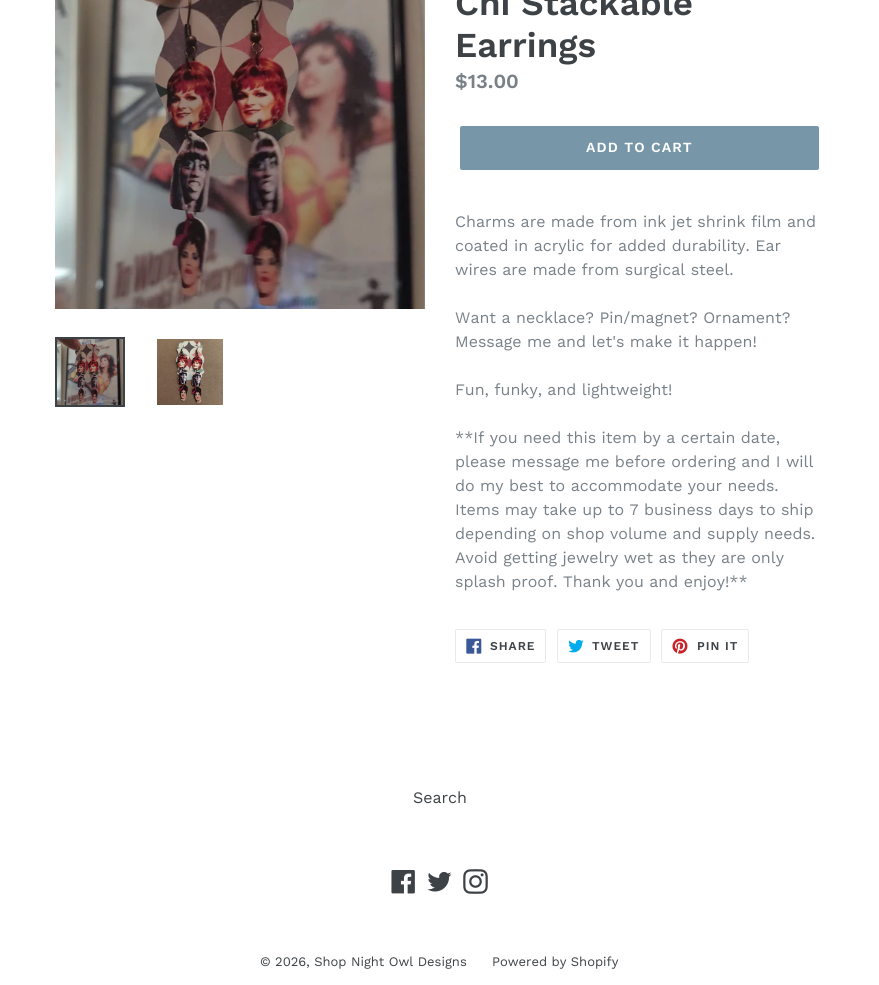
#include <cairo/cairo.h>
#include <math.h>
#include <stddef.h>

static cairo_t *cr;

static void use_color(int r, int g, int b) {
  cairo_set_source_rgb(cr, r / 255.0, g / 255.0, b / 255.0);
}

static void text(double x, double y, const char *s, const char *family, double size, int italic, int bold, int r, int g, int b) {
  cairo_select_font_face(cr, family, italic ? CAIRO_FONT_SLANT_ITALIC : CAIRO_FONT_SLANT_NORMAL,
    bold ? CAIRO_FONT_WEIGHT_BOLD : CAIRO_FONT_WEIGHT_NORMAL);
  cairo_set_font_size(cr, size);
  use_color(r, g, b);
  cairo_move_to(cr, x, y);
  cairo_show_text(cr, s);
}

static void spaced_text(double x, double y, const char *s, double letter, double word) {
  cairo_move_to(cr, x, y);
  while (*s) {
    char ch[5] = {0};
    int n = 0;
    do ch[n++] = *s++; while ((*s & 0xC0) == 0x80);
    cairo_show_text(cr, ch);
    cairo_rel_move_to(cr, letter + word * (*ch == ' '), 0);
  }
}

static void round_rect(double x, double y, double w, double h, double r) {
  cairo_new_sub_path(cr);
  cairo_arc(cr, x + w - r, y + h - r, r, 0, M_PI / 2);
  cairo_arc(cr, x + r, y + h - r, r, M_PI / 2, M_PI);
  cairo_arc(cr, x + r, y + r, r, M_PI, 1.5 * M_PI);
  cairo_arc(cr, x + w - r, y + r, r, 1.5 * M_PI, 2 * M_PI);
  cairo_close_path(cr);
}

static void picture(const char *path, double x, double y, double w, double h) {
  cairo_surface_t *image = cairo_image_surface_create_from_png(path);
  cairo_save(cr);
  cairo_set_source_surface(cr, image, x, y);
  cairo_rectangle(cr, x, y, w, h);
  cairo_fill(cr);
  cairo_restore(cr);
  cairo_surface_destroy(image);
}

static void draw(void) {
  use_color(255, 255, 255);
  cairo_paint(cr);
  picture("img_01.png", 55, 0, 370, 309);
  cairo_rectangle(cr, 56, 338, 68, 68);
  use_color(61, 66, 70);
  cairo_stroke(cr);
  picture("img_02.png", 57, 339, 66, 66);
  picture("img_03.png", 157, 339, 66, 66);
  use_color(119, 150, 168);
  round_rect(460, 126, 359, 44, 2);
  cairo_fill(cr);
  round_rect(455.5, 629.5, 90, 33, 1.5);
  use_color(232, 233, 235);
  cairo_set_line_width(cr, 1);
  cairo_stroke(cr);
  picture("img_04.png", 466, 638, 16, 16);
  round_rect(557.5, 629.5, 93, 33, 1.5);
  cairo_stroke(cr);
  picture("img_05.png", 568, 639, 16, 14);
  round_rect(661.5, 629.5, 87, 33, 1.5);
  cairo_stroke(cr);
  picture("img_06.png", 672, 638, 16, 16);
  picture("img_07.png", 391, 870, 24, 24);
  picture("img_08.png", 427, 872, 25, 20);
  picture("img_09.png", 463, 869, 25, 25);
  text(455, 15, "Chi Stackable", "Work Sans SemiBold", 35, 0, 0, 61, 66, 70);
  text(455, 57, "Earrings", "Work Sans SemiBold", 35, 0, 0, 61, 66, 70);
  text(455, 88, "$13.00", "Work Sans SemiBold", 20, 0, 0, 120, 129, 136);
  cairo_set_font_size(cr, 14);
  use_color(255, 255, 255);
  spaced_text(586, 152, "ADD TO CART", 1.1, 0);
  text(455, 227, "Charms are made from ink jet shrink film and", "Work Sans", 16, 0, 0, 120, 129, 136);
  text(455, 251, "coated in acrylic for added durability. Ear", "Work Sans", 16, 0, 0, 120, 129, 136);
  text(455, 275, "wires are made from surgical steel.", "Work Sans", 16, 0, 0, 120, 129, 136);
  text(455, 323, "Want a necklace? Pin/magnet? Ornament?", "Work Sans", 16, 0, 0, 120, 129, 136);
  text(455, 347, "Message me and let's make it happen!", "Work Sans", 16, 0, 0, 120, 129, 136);
  text(455, 395, "Fun, funky, and lightweight!", "Work Sans", 16, 0, 0, 120, 129, 136);
  text(455, 443, "**If you need this item by a certain date,", "Work Sans", 16, 0, 0, 120, 129, 136);
  text(455, 467, "please message me before ordering and I will", "Work Sans", 16, 0, 0, 120, 129, 136);
  text(455, 491, "do my best to accommodate your needs.", "Work Sans", 16, 0, 0, 120, 129, 136);
  text(455, 515, "Items may take up to 7 business days to ship", "Work Sans", 16, 0, 0, 120, 129, 136);
  text(455, 539, "depending on shop volume and supply needs.", "Work Sans", 16, 0, 0, 120, 129, 136);
  text(455, 563, "Avoid getting jewelry wet as they are only", "Work Sans", 16, 0, 0, 120, 129, 136);
  text(455, 587, "splash proof. Thank you and enjoy!**", "Work Sans", 16, 0, 0, 120, 129, 136);
  cairo_select_font_face(cr, "Work Sans SemiBold", CAIRO_FONT_SLANT_NORMAL, CAIRO_FONT_WEIGHT_NORMAL);
  cairo_set_font_size(cr, 12);
  use_color(61, 66, 70);
  spaced_text(490, 650, "SHARE", 1, 0);
  spaced_text(592, 650, "TWEET", 1, 0);
  spaced_text(697, 650, "PIN IT", 1, 0);
  text(413, 803, "Search", "Work Sans", 16, 0, 0, 61, 66, 70);
  text(260, 966, "© 2026, Shop Night Owl Designs", "Work Sans", 13, 0, 0, 61, 66, 70);
  text(492, 966, "Powered by Shopify", "Work Sans", 13, 0, 0, 61, 66, 70);
}

int main(void) {
  cairo_surface_t *surface = cairo_image_surface_create(CAIRO_FORMAT_RGB24, 879, 985);
  cr = cairo_create(surface);
  cairo_font_options_t *options = cairo_font_options_create();
  cairo_font_options_set_hint_metrics(options, CAIRO_HINT_METRICS_OFF);
  cairo_font_options_set_hint_style(options, CAIRO_HINT_STYLE_NONE);
  cairo_set_font_options(cr, options);
  cairo_set_miter_limit(cr, 4);
  draw();
  cairo_surface_write_to_png(surface, "out.png");
  cairo_font_options_destroy(options);
  cairo_destroy(cr);
  cairo_surface_destroy(surface);
  return 0;
}
